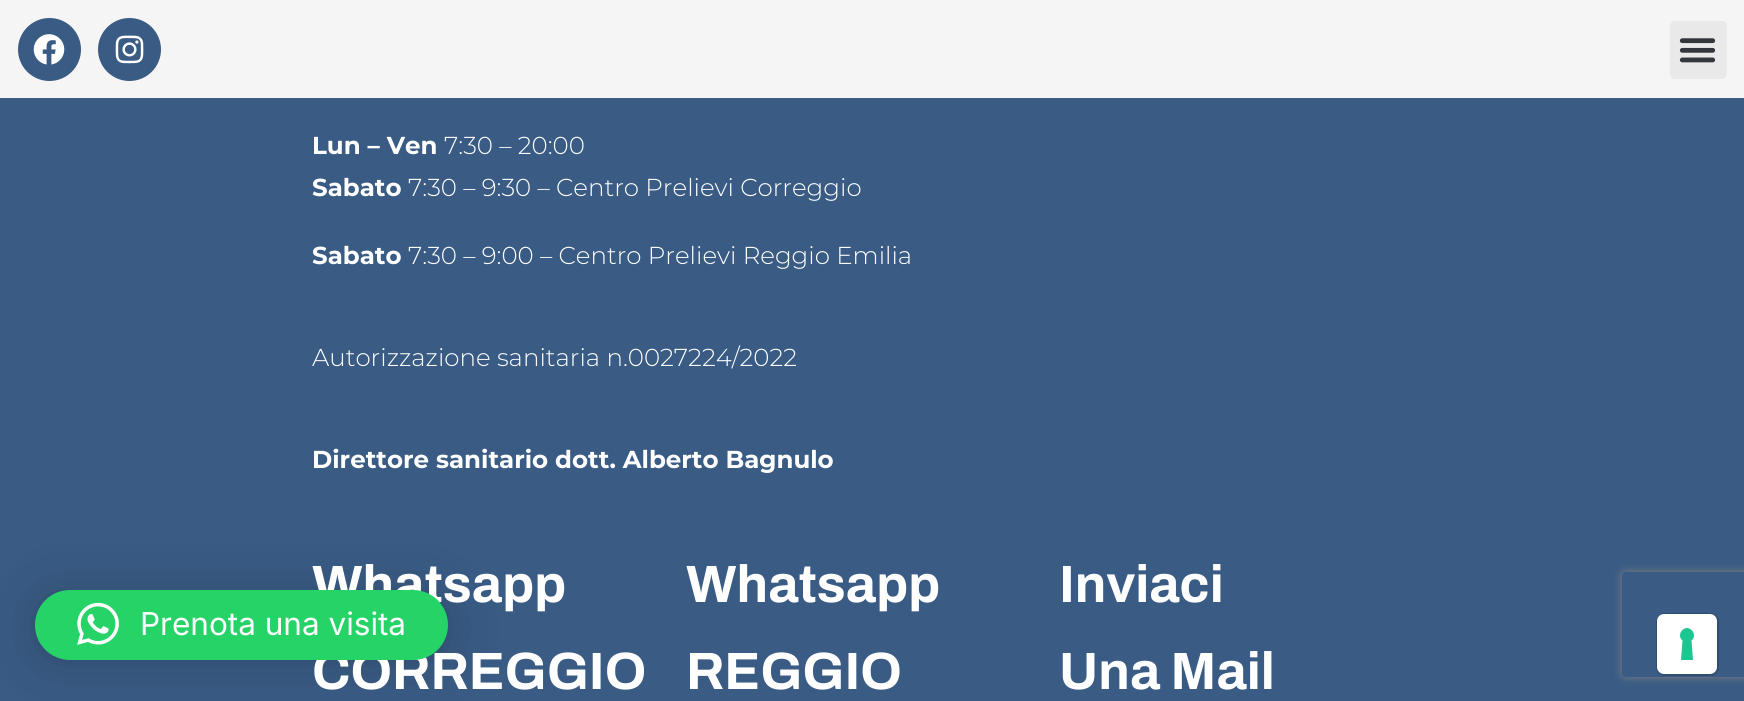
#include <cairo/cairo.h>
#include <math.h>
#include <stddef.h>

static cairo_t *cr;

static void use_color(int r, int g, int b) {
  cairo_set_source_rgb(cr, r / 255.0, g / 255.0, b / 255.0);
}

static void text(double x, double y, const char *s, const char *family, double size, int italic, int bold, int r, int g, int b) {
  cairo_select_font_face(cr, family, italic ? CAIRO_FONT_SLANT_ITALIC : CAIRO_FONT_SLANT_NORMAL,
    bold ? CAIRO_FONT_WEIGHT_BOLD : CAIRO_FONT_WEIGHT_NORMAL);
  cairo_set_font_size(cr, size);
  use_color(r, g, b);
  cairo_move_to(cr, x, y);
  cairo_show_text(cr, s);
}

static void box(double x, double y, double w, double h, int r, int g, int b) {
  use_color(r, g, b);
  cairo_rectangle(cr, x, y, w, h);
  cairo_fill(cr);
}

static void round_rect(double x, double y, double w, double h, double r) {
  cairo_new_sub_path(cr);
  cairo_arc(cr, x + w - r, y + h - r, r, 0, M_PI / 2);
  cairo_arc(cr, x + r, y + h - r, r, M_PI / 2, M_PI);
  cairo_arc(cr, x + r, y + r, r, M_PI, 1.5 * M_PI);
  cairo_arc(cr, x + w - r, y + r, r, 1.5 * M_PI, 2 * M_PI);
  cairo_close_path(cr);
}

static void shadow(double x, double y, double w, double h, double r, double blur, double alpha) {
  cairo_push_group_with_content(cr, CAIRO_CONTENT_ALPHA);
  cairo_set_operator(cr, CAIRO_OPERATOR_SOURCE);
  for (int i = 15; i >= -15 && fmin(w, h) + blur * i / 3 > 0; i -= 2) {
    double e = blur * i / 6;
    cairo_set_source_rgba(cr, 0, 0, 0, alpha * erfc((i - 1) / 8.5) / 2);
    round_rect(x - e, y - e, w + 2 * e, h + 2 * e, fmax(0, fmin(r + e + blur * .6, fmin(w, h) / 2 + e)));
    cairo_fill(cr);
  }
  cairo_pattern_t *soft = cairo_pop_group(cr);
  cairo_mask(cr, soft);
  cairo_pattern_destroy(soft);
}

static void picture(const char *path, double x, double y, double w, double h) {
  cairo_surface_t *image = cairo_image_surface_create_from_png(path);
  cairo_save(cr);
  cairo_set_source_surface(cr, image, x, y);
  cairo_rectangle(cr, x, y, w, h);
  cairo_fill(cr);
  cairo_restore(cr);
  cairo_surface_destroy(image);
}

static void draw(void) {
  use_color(57, 91, 132);
  cairo_paint(cr);
  box(0, 0, 1744, 98, 245, 245, 245);
  use_color(57, 91, 132);
  cairo_arc(cr, 49.5, 49.5, 31.5, 0, 2 * M_PI);
  cairo_fill(cr);
  picture("img_01.png", 33, 34, 32, 31);
  cairo_arc(cr, 129.5, 49.5, 31.5, 0, 2 * M_PI);
  cairo_fill(cr);
  picture("img_02.png", 115, 35, 29, 29);
  use_color(233, 233, 233);
  round_rect(1670, 21, 57, 58, 5);
  cairo_fill(cr);
  picture("img_03.png", 1679, 38, 37, 25);
  use_color(0, 0, 0);
  shadow(35, 593, 413, 70, 35, 28, 0.16);
  shadow(35, 592, 413, 70, 35, 5, 0.06);
  cairo_save(cr);
  cairo_set_fill_rule(cr, CAIRO_FILL_RULE_EVEN_ODD);
  cairo_new_path(cr);
  cairo_move_to(cr, 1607, 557);
  cairo_line_to(cr, 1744, 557);
  cairo_line_to(cr, 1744, 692);
  cairo_line_to(cr, 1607, 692);
  cairo_close_path(cr);
  cairo_move_to(cr, 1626, 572);
  cairo_line_to(cr, 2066, 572);
  cairo_curve_to(cr, 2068, 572, 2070, 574, 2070, 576);
  cairo_line_to(cr, 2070, 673);
  cairo_curve_to(cr, 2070, 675, 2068, 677, 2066, 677);
  cairo_line_to(cr, 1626, 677);
  cairo_curve_to(cr, 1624, 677, 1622, 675, 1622, 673);
  cairo_line_to(cr, 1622, 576);
  cairo_curve_to(cr, 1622, 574, 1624, 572, 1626, 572);
  cairo_close_path(cr);
  cairo_clip(cr);
  use_color(128, 128, 128);
  shadow(1622, 572, 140, 105, 4, 4.5, 1);
  cairo_restore(cr);
  round_rect(1657, 614, 61, 61, 8);
  use_color(48, 77, 112);
  cairo_stroke(cr);
  use_color(255, 255, 255);
  round_rect(1657, 614, 60, 60, 7);
  cairo_fill(cr);
  use_color(28, 198, 145);
  cairo_set_fill_rule(cr, CAIRO_FILL_RULE_EVEN_ODD);
  cairo_new_path(cr);
  cairo_move_to(cr, 1687, 628);
  cairo_curve_to(cr, 1693.5, 628.5, 1696.5, 636.5, 1691.5, 640.5);
  cairo_line_to(cr, 1693, 660);
  cairo_line_to(cr, 1681, 660);
  cairo_line_to(cr, 1682.5, 640.5);
  cairo_curve_to(cr, 1677.5, 636.5, 1680.5, 628.5, 1687, 628);
  cairo_close_path(cr);
  cairo_fill(cr);
  text(312, 154, "Lun – Ven", "Montserrat", 24.5, 0, 1, 255, 255, 255);
  text(444, 154, "7:30 – 20:00", "Montserrat Light", 24.5, 0, 0, 255, 255, 255);
  text(312, 196, "Sabato", "Montserrat", 24.5, 0, 1, 255, 255, 255);
  text(408, 196, "7:30 – 9:30 – Centro Prelievi Correggio", "Montserrat Light", 24.5, 0, 0, 255, 255, 255);
  text(312, 264, "Sabato", "Montserrat", 24.5, 0, 1, 255, 255, 255);
  text(408, 264, "7:30 – 9:00 – Centro Prelievi Reggio Emilia", "Montserrat Light", 24.5, 0, 0, 255, 255, 255);
  text(312, 366, "Autorizzazione sanitaria n.0027224/2022", "Montserrat Light", 24.5, 0, 0, 255, 255, 255);
  text(312, 468, "Direttore sanitario dott. Alberto Bagnulo", "Montserrat", 24.5, 0, 1, 255, 255, 255);
  text(312, 602, "Whatsapp", "Archivo", 52.5, 0, 1, 255, 255, 255);
  text(312, 689, "CORREGGIO", "Archivo", 52.5, 0, 1, 255, 255, 255);
  use_color(37, 211, 102);
  round_rect(35, 590, 413, 70, 35);
  cairo_fill(cr);
  text(140, 635, "Prenota una visita", "Inter", 31.5, 0, 0, 255, 255, 255);
  picture("img_04.png", 77, 602, 42, 43);
  text(686, 602, "Whatsapp", "Archivo", 52.5, 0, 1, 255, 255, 255);
  text(686, 689, "REGGIO", "Archivo", 52.5, 0, 1, 255, 255, 255);
  text(1059, 602, "Inviaci", "Archivo", 52.5, 0, 1, 255, 255, 255);
  text(1059, 689, "Una Mail", "Archivo", 52.5, 0, 1, 255, 255, 255);
}

int main(void) {
  cairo_surface_t *surface = cairo_image_surface_create(CAIRO_FORMAT_RGB24, 1744, 701);
  cr = cairo_create(surface);
  cairo_font_options_t *options = cairo_font_options_create();
  cairo_font_options_set_hint_metrics(options, CAIRO_HINT_METRICS_OFF);
  cairo_font_options_set_hint_style(options, CAIRO_HINT_STYLE_NONE);
  cairo_set_font_options(cr, options);
  cairo_set_miter_limit(cr, 4);
  draw();
  cairo_surface_write_to_png(surface, "out.png");
  cairo_font_options_destroy(options);
  cairo_destroy(cr);
  cairo_surface_destroy(surface);
  return 0;
}
